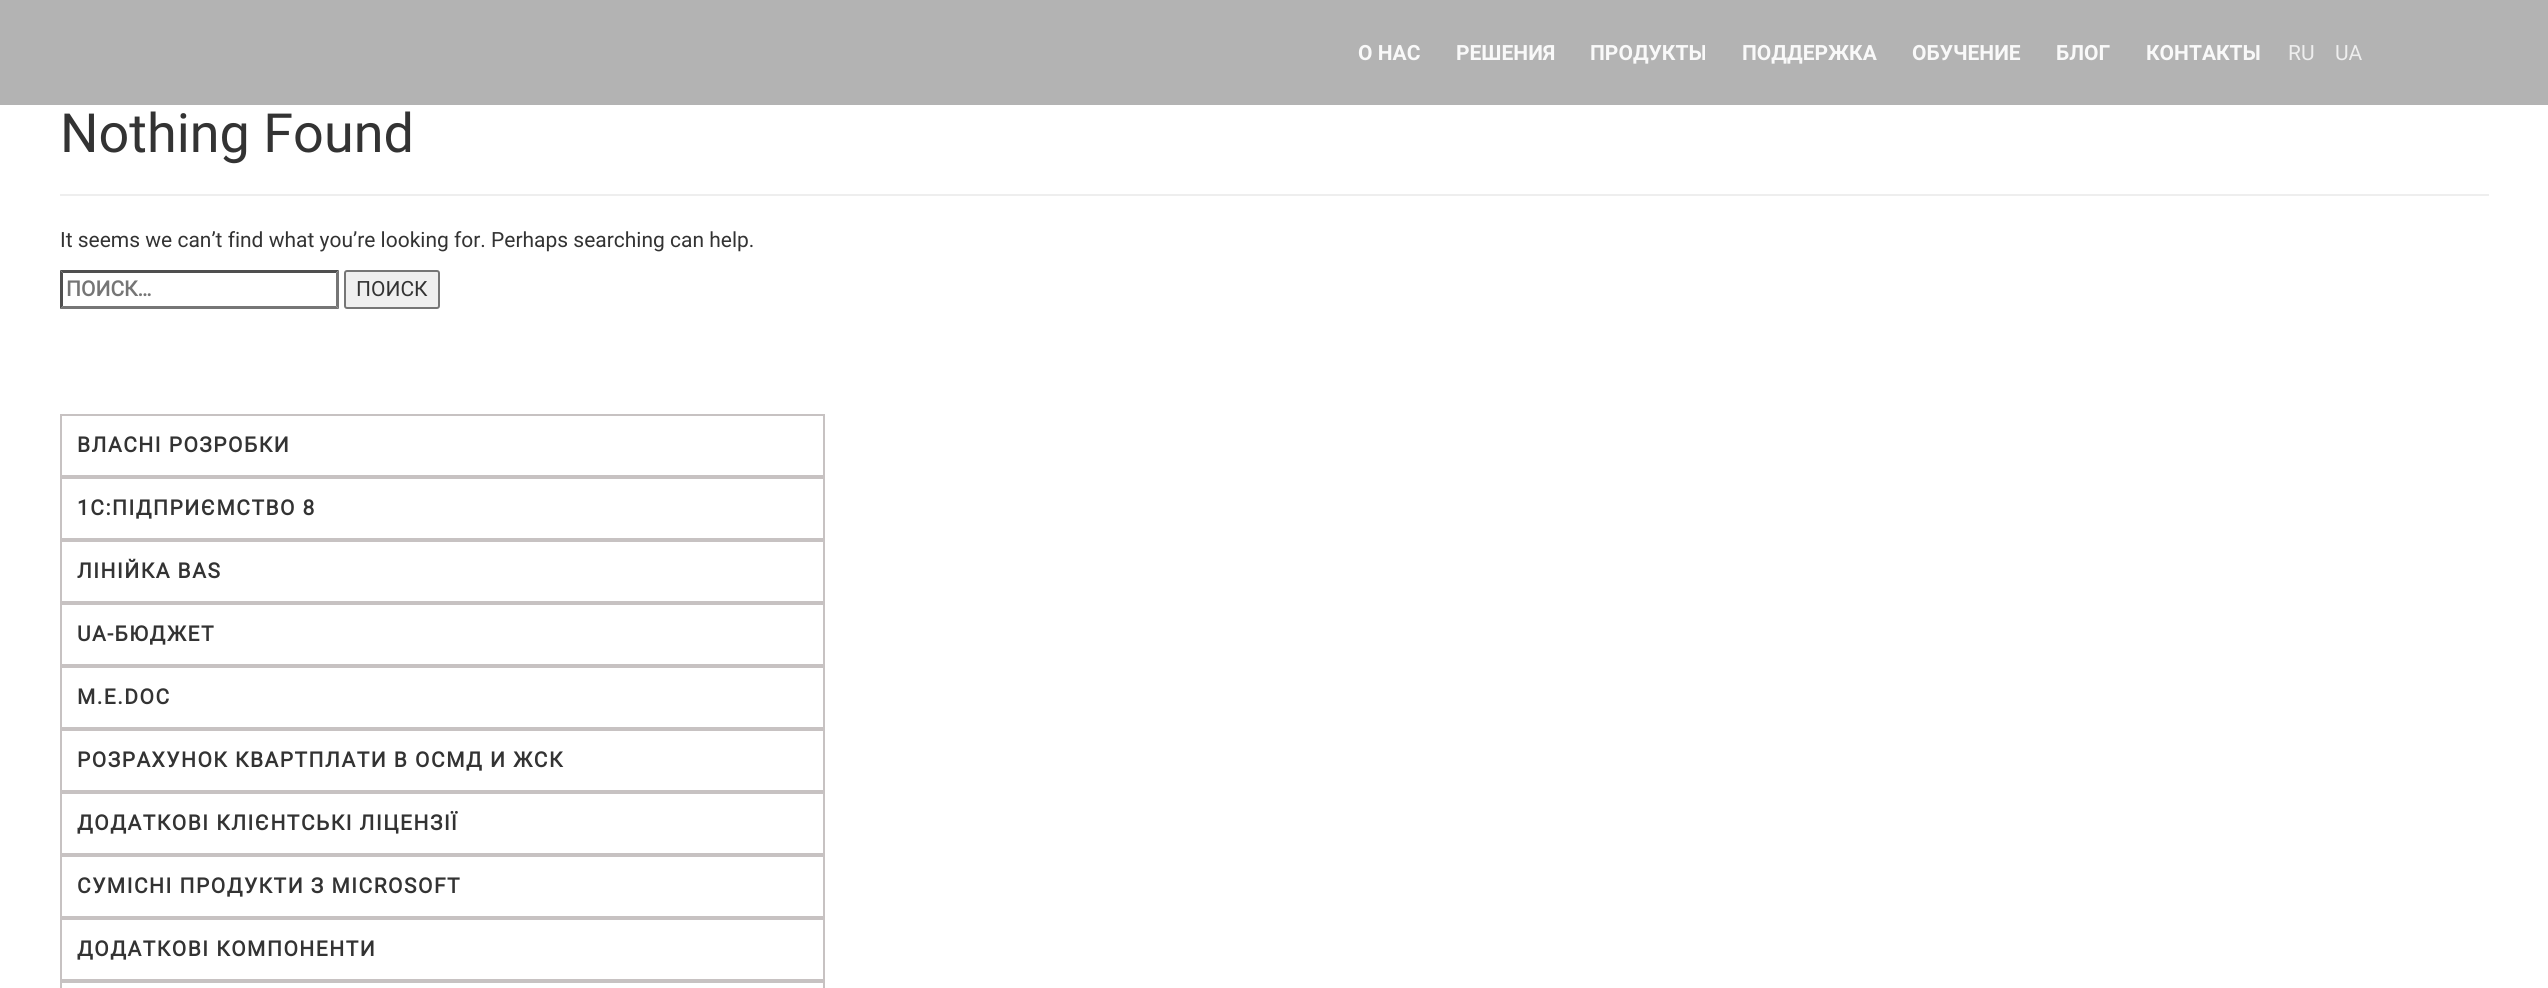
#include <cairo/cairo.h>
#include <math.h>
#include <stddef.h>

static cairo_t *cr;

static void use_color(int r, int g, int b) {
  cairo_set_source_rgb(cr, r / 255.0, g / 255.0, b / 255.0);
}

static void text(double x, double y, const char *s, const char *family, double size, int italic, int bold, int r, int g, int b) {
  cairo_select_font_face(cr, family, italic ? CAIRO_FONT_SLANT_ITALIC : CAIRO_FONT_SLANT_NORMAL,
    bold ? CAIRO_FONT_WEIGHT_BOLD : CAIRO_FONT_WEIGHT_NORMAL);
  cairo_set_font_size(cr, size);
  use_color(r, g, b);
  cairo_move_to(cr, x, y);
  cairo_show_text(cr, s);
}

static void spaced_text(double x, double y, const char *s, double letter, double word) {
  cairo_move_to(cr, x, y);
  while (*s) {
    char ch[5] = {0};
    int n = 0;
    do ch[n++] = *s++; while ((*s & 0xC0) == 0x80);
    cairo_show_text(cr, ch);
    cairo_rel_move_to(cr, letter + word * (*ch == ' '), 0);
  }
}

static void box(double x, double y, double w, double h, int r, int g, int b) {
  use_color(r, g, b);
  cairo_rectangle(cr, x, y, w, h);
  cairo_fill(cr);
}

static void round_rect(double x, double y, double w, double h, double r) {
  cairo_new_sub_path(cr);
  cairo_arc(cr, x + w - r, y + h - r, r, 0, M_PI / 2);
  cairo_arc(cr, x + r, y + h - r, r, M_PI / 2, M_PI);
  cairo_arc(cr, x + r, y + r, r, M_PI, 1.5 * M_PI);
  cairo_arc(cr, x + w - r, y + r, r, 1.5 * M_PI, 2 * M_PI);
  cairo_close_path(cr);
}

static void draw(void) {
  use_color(255, 255, 255);
  cairo_paint(cr);
  box(0, 0, 2548, 105, 179, 179, 179);
  box(60, 194, 2429, 2, 238, 238, 238);
  use_color(79, 79, 79);
  cairo_new_path(cr);
  cairo_move_to(cr, 60, 270);
  cairo_line_to(cr, 339, 270);
  cairo_line_to(cr, 336, 273);
  cairo_line_to(cr, 63, 273);
  cairo_close_path(cr);
  cairo_fill(cr);
  use_color(118, 118, 118);
  cairo_new_path(cr);
  cairo_move_to(cr, 339, 270);
  cairo_line_to(cr, 339, 309);
  cairo_line_to(cr, 336, 306);
  cairo_line_to(cr, 336, 273);
  cairo_close_path(cr);
  cairo_fill(cr);
  cairo_new_path(cr);
  cairo_move_to(cr, 339, 309);
  cairo_line_to(cr, 60, 309);
  cairo_line_to(cr, 63, 306);
  cairo_line_to(cr, 336, 306);
  cairo_close_path(cr);
  cairo_fill(cr);
  use_color(79, 79, 79);
  cairo_new_path(cr);
  cairo_move_to(cr, 60, 309);
  cairo_line_to(cr, 60, 270);
  cairo_line_to(cr, 63, 273);
  cairo_line_to(cr, 63, 306);
  cairo_close_path(cr);
  cairo_fill(cr);
  use_color(239, 239, 239);
  round_rect(345, 271, 94, 37, 2);
  cairo_fill_preserve(cr);
  use_color(118, 118, 118);
  cairo_stroke(cr);
  cairo_rectangle(cr, 61, 415, 763, 61);
  use_color(199, 194, 194);
  cairo_stroke(cr);
  cairo_rectangle(cr, 61, 478, 763, 61);
  cairo_stroke(cr);
  cairo_rectangle(cr, 61, 541, 763, 61);
  cairo_stroke(cr);
  cairo_rectangle(cr, 61, 604, 763, 61);
  cairo_stroke(cr);
  cairo_rectangle(cr, 61, 667, 763, 61);
  cairo_stroke(cr);
  cairo_rectangle(cr, 61, 730, 763, 61);
  cairo_stroke(cr);
  cairo_rectangle(cr, 61, 793, 763, 61);
  cairo_stroke(cr);
  cairo_rectangle(cr, 61, 856, 763, 61);
  cairo_stroke(cr);
  cairo_rectangle(cr, 61, 919, 763, 61);
  cairo_stroke(cr);
  cairo_rectangle(cr, 61, 982, 763, 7);
  cairo_stroke(cr);
  text(1358, 60, "О НАС", "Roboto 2", 21, 0, 1, 249, 249, 249);
  text(1456, 60, "РЕШЕНИЯ", "Roboto 2", 21, 0, 1, 249, 249, 249);
  text(1590, 60, "ПРОДУКТЫ", "Roboto 2", 21, 0, 1, 249, 249, 249);
  text(1742, 60, "ПОДДЕРЖКА", "Roboto 2", 21, 0, 1, 249, 249, 249);
  text(1912, 60, "ОБУЧЕНИЕ", "Roboto 2", 21, 0, 1, 249, 249, 249);
  text(2056, 60, "БЛОГ", "Roboto 2", 21, 0, 1, 249, 249, 249);
  text(2146, 60, "КОНТАКТЫ", "Roboto 2", 21, 0, 1, 249, 249, 249);
  text(2288, 60, "RU", "Roboto", 21, 0, 0, 238, 238, 238);
  text(2335, 60, "UA", "Roboto", 21, 0, 0, 238, 238, 238);
  text(60, 152, "Nothing Found", "Roboto", 54, 0, 0, 51, 51, 51);
  text(60, 247, "It seems we can’t find what you’re looking for. Perhaps searching can help.", "Roboto", 21, 0, 0, 51, 51, 51);
  text(66, 296, "ПОИСК…", "Roboto", 21, 0, 1, 117, 117, 117);
  text(356, 296, "ПОИСК", "Roboto", 21, 0, 0, 51, 51, 51);
  cairo_select_font_face(cr, "Roboto", CAIRO_FONT_SLANT_NORMAL, CAIRO_FONT_WEIGHT_BOLD);
  spaced_text(77, 452, "ВЛАСНІ РОЗРОБКИ", 1.5, 0);
  spaced_text(77, 515, "1С:ПІДПРИЄМСТВО 8", 1.5, 0);
  spaced_text(77, 578, "ЛІНІЙКА BAS", 1.5, 0);
  spaced_text(77, 641, "UA-БЮДЖЕТ", 1.5, 0);
  spaced_text(77, 704, "М.Е.DOC", 1.5, 0);
  spaced_text(77, 767, "РОЗРАХУНОК КВАРТПЛАТИ В ОСМД И ЖСК", 1.5, 0);
  spaced_text(77, 830, "ДОДАТКОВІ КЛІЄНТСЬКІ ЛІЦЕНЗІЇ", 1.5, 0);
  spaced_text(77, 893, "СУМІСНІ ПРОДУКТИ З MICROSOFT", 1.5, 0);
  spaced_text(77, 956, "ДОДАТКОВІ КОМПОНЕНТИ", 1.5, 0);
}

int main(void) {
  cairo_surface_t *surface = cairo_image_surface_create(CAIRO_FORMAT_RGB24, 2548, 988);
  cr = cairo_create(surface);
  cairo_font_options_t *options = cairo_font_options_create();
  cairo_font_options_set_hint_metrics(options, CAIRO_HINT_METRICS_OFF);
  cairo_font_options_set_hint_style(options, CAIRO_HINT_STYLE_NONE);
  cairo_set_font_options(cr, options);
  cairo_set_miter_limit(cr, 4);
  draw();
  cairo_surface_write_to_png(surface, "out.png");
  cairo_font_options_destroy(options);
  cairo_destroy(cr);
  cairo_surface_destroy(surface);
  return 0;
}
